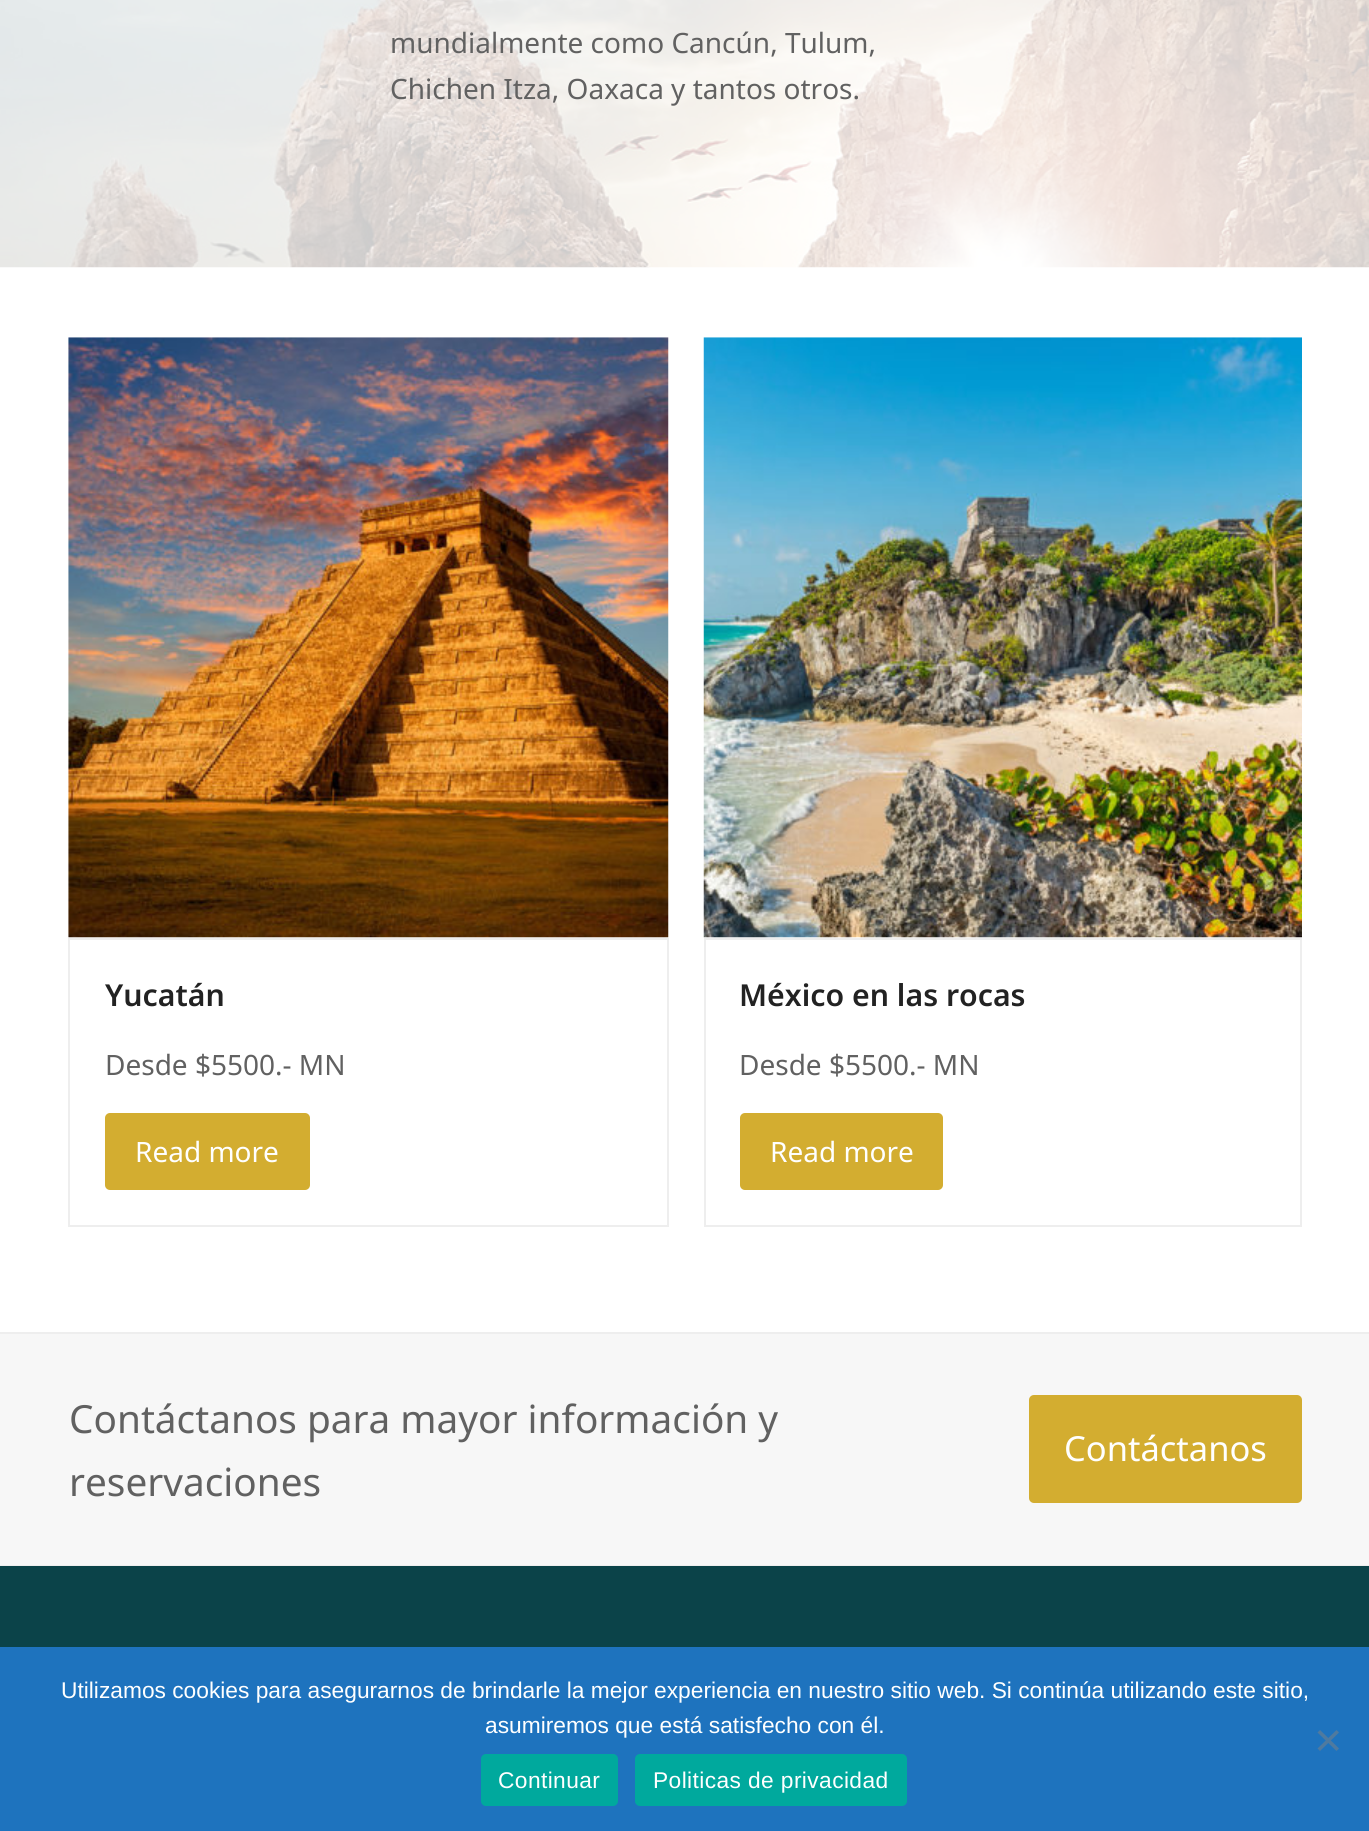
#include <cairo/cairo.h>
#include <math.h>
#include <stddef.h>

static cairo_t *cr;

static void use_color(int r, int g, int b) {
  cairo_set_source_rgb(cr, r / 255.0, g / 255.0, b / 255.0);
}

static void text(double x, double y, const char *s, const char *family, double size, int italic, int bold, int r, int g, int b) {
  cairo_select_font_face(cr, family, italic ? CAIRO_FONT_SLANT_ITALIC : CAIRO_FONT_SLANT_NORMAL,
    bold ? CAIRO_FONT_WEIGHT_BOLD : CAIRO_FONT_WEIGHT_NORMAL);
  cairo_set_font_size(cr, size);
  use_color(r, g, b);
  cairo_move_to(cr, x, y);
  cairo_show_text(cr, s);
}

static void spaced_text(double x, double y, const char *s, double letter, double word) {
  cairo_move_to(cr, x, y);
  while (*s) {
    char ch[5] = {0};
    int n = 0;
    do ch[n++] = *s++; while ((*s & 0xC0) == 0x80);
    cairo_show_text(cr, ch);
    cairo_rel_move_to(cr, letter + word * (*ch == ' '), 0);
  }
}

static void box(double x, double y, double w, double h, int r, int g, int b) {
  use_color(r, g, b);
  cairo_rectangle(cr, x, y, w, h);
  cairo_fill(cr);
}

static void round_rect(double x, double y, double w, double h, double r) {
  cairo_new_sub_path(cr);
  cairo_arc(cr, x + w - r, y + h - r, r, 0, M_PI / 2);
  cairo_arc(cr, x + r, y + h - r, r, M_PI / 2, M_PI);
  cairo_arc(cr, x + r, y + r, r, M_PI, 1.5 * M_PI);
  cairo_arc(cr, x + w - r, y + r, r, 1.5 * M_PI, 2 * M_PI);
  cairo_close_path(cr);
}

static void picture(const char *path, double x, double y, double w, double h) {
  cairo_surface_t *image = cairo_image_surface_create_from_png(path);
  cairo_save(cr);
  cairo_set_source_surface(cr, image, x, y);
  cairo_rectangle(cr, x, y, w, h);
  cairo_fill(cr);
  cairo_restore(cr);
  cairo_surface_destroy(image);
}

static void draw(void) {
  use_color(255, 255, 255);
  cairo_paint(cr);
  picture("img_01.png", 0, 0, 1369, 268);
  picture("img_02.png", 68, 337, 601, 601);
  cairo_rectangle(cr, 69, 939, 599, 287);
  use_color(238, 238, 238);
  cairo_stroke(cr);
  use_color(211, 173, 48);
  round_rect(105, 1113, 205, 77, 5);
  cairo_fill(cr);
  picture("img_03.png", 703, 337, 599, 601);
  cairo_rectangle(cr, 705, 939, 596, 287);
  use_color(238, 238, 238);
  cairo_stroke(cr);
  use_color(211, 173, 48);
  round_rect(740, 1113, 203, 77, 5);
  cairo_fill(cr);
  box(0, 1334, 1369, 231, 247, 247, 247);
  box(0, 1332, 1369, 2, 238, 238, 238);
  box(0, 1565, 1369, 1, 238, 238, 238);
  use_color(211, 173, 48);
  round_rect(1029, 1395, 273, 108, 5);
  cairo_fill(cr);
  box(0, 1566, 1369, 81, 11, 67, 73);
  box(0, 1647, 1369, 184, 30, 115, 190);
  use_color(79, 122, 159);
  cairo_new_path(cr);
  cairo_move_to(cr, 1336.5, 1730);
  cairo_line_to(cr, 1339, 1732.5);
  cairo_line_to(cr, 1320, 1751);
  cairo_line_to(cr, 1317.5, 1748.5);
  cairo_close_path(cr);
  cairo_fill(cr);
  cairo_new_path(cr);
  cairo_move_to(cr, 1317.5, 1732.5);
  cairo_line_to(cr, 1320, 1730);
  cairo_line_to(cr, 1339, 1748.5);
  cairo_line_to(cr, 1336.5, 1751);
  cairo_close_path(cr);
  cairo_fill(cr);
  use_color(0, 169, 157);
  round_rect(481, 1754, 137, 52, 5);
  cairo_fill(cr);
  round_rect(635, 1754, 272, 52, 5);
  cairo_fill(cr);
  text(390, 53, "mundialmente como Cancún, Tulum,", "Noto Sans", 28, 0, 0, 97, 97, 97);
  text(390, 99, "Chichen Itza, Oaxaca y tantos otros.", "Noto Sans", 28, 0, 0, 97, 97, 97);
  text(105, 1006, "Yucatán", "Noto Sans SemiBold", 30.25, 0, 0, 34, 34, 34);
  text(105, 1075, "Desde $5500.- MN", "Noto Sans", 28, 0, 0, 97, 97, 97);
  text(135, 1162, "Read more", "Noto Sans", 28, 0, 0, 255, 255, 255);
  text(739, 1006, "México en las rocas", "Noto Sans SemiBold", 30.25, 0, 0, 34, 34, 34);
  text(739, 1075, "Desde $5500.- MN", "Noto Sans", 28, 0, 0, 97, 97, 97);
  text(770, 1162, "Read more", "Noto Sans", 28, 0, 0, 255, 255, 255);
  text(69, 1433, "Contáctanos para mayor información y", "Noto Sans", 38.75, 0, 0, 97, 97, 97);
  text(69, 1496, "reservaciones", "Noto Sans", 38.75, 0, 0, 97, 97, 97);
  text(1064, 1461, "Contáctanos", "Noto Sans", 34.5, 0, 0, 255, 255, 255);
  text(61, 1698, "Utilizamos cookies para asegurarnos de brindarle la mejor experiencia en nuestro sitio web. Si continúa utilizando este sitio,", "Liberation Sans", 22.75, 0, 0, 255, 255, 255);
  text(485, 1733, "asumiremos que está satisfecho con él.", "Liberation Sans", 22.75, 0, 0, 255, 255, 255);
  spaced_text(498, 1788, "Continuar", 0.4, 0);
  spaced_text(653, 1788, "Politicas de privacidad", 0.4, 0);
}

int main(void) {
  cairo_surface_t *surface = cairo_image_surface_create(CAIRO_FORMAT_RGB24, 1369, 1831);
  cr = cairo_create(surface);
  cairo_font_options_t *options = cairo_font_options_create();
  cairo_font_options_set_hint_metrics(options, CAIRO_HINT_METRICS_OFF);
  cairo_font_options_set_hint_style(options, CAIRO_HINT_STYLE_NONE);
  cairo_set_font_options(cr, options);
  cairo_set_miter_limit(cr, 4);
  draw();
  cairo_surface_write_to_png(surface, "out.png");
  cairo_font_options_destroy(options);
  cairo_destroy(cr);
  cairo_surface_destroy(surface);
  return 0;
}
